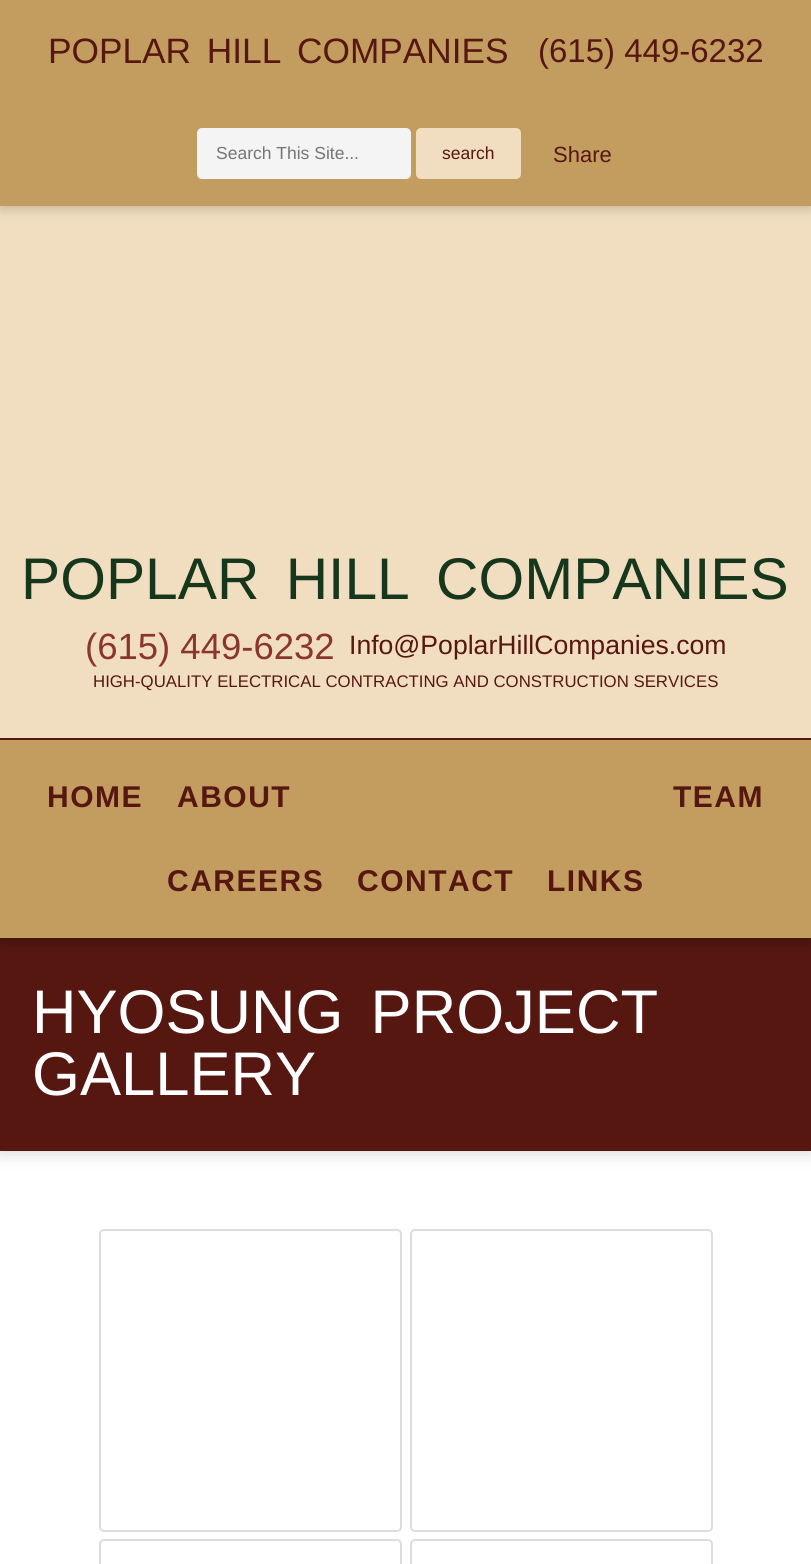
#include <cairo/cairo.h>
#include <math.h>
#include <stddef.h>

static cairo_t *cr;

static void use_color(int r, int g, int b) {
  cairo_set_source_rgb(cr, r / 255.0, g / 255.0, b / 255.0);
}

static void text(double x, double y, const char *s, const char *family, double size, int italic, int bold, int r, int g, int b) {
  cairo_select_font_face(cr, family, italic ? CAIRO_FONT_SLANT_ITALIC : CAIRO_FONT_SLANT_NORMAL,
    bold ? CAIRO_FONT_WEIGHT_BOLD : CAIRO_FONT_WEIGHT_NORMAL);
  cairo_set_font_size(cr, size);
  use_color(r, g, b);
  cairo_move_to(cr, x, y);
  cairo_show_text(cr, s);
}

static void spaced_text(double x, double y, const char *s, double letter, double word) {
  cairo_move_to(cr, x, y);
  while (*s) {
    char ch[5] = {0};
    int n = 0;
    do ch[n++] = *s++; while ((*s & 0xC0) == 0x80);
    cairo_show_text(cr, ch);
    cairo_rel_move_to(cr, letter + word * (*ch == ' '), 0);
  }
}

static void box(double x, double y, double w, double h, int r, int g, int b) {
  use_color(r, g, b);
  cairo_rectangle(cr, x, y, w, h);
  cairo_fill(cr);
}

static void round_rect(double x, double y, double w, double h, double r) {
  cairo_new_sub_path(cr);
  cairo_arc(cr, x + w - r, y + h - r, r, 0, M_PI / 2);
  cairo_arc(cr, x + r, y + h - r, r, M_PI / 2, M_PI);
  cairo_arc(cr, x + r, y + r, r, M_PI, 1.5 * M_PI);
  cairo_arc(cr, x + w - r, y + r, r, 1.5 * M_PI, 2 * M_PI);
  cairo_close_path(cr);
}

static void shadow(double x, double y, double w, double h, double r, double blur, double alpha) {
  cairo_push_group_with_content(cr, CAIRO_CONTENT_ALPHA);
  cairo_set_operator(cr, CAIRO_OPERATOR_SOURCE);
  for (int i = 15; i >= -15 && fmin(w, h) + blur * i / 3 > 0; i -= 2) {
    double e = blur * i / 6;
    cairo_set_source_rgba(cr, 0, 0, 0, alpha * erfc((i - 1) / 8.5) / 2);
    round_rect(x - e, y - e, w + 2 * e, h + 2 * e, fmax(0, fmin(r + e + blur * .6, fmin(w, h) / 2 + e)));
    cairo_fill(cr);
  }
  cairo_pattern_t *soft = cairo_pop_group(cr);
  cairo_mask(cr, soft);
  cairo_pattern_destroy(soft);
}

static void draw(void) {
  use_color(255, 255, 255);
  cairo_paint(cr);
  use_color(0, 0, 0);
  shadow(0, 938, 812, 213, 0, 9, 0.2);
  box(0, 938, 811, 213, 87, 23, 17);
  use_color(0, 0, 0);
  shadow(0, 0, 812, 938, 0, 9, 0.4);
  box(0, 206, 811, 532, 241, 222, 192);
  use_color(0, 0, 0);
  shadow(0, 0, 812, 206, 0, 7.5, 0.25);
  box(0, 0, 811, 206, 195, 156, 95);
  use_color(244, 244, 244);
  round_rect(197, 128, 214, 51, 5);
  cairo_fill(cr);
  use_color(241, 222, 192);
  round_rect(416, 128, 105, 51, 5);
  cairo_fill(cr);
  box(0, 740, 811, 198, 195, 156, 95);
  box(0, 738, 811, 2, 87, 23, 17);
  round_rect(100, 1230, 301, 301, 4);
  use_color(221, 221, 221);
  cairo_stroke(cr);
  round_rect(411, 1230, 301, 301, 4);
  cairo_stroke(cr);
  round_rect(100, 1540, 301, 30, 4);
  cairo_stroke(cr);
  round_rect(411, 1540, 301, 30, 4);
  cairo_stroke(cr);
  cairo_select_font_face(cr, "Liberation Sans", CAIRO_FONT_SLANT_NORMAL, CAIRO_FONT_WEIGHT_NORMAL);
  cairo_set_font_size(cr, 35.25);
  use_color(87, 23, 17);
  spaced_text(48, 63, "POPLAR HILL COMPANIES", 0, 6);
  text(538, 62, "(615) 449-6232", "Liberation Sans", 33, 0, 0, 87, 23, 17);
  text(216, 159, "Search This Site...", "Liberation Sans", 17.5, 0, 0, 117, 117, 117);
  text(442, 159, "search", "Liberation Sans", 17.5, 0, 0, 87, 23, 17);
  text(553, 162, "Share", "Liberation Sans", 22, 0, 0, 87, 23, 17);
  cairo_set_font_size(cr, 58.75);
  use_color(23, 55, 28);
  spaced_text(21, 599, "POPLAR HILL COMPANIES", 0, 10);
  text(85, 659, "(615) 449-6232", "Liberation Sans", 36.5, 0, 0, 138, 54, 47);
  text(349, 654, "Info@PoplarHillCompanies.com", "Liberation Sans", 26.6, 0, 0, 87, 23, 17);
  text(93, 687, "HIGH-QUALITY ELECTRICAL CONTRACTING AND CONSTRUCTION SERVICES", "Liberation Sans", 16.8, 0, 0, 87, 23, 17);
  cairo_select_font_face(cr, "Liberation Sans", CAIRO_FONT_SLANT_NORMAL, CAIRO_FONT_WEIGHT_BOLD);
  cairo_set_font_size(cr, 30);
  spaced_text(47, 807, "HOME", 1.5, 0);
  spaced_text(177, 807, "ABOUT", 1.5, 0);
  spaced_text(673, 807, "TEAM", 1.5, 0);
  spaced_text(167, 891, "CAREERS", 1.5, 0);
  spaced_text(357, 891, "CONTACT", 1.5, 0);
  spaced_text(547, 891, "LINKS", 1.5, 0);
  cairo_select_font_face(cr, "Liberation Sans", CAIRO_FONT_SLANT_NORMAL, CAIRO_FONT_WEIGHT_NORMAL);
  cairo_set_font_size(cr, 61.6);
  use_color(255, 255, 255);
  spaced_text(32, 1033, "HYOSUNG PROJECT", 0, 10);
  text(32, 1095, "GALLERY", "Liberation Sans", 61.6, 0, 0, 255, 255, 255);
}

int main(void) {
  cairo_surface_t *surface = cairo_image_surface_create(CAIRO_FORMAT_RGB24, 811, 1564);
  cr = cairo_create(surface);
  cairo_font_options_t *options = cairo_font_options_create();
  cairo_font_options_set_hint_metrics(options, CAIRO_HINT_METRICS_OFF);
  cairo_font_options_set_hint_style(options, CAIRO_HINT_STYLE_NONE);
  cairo_set_font_options(cr, options);
  cairo_set_miter_limit(cr, 4);
  draw();
  cairo_surface_write_to_png(surface, "out.png");
  cairo_font_options_destroy(options);
  cairo_destroy(cr);
  cairo_surface_destroy(surface);
  return 0;
}
